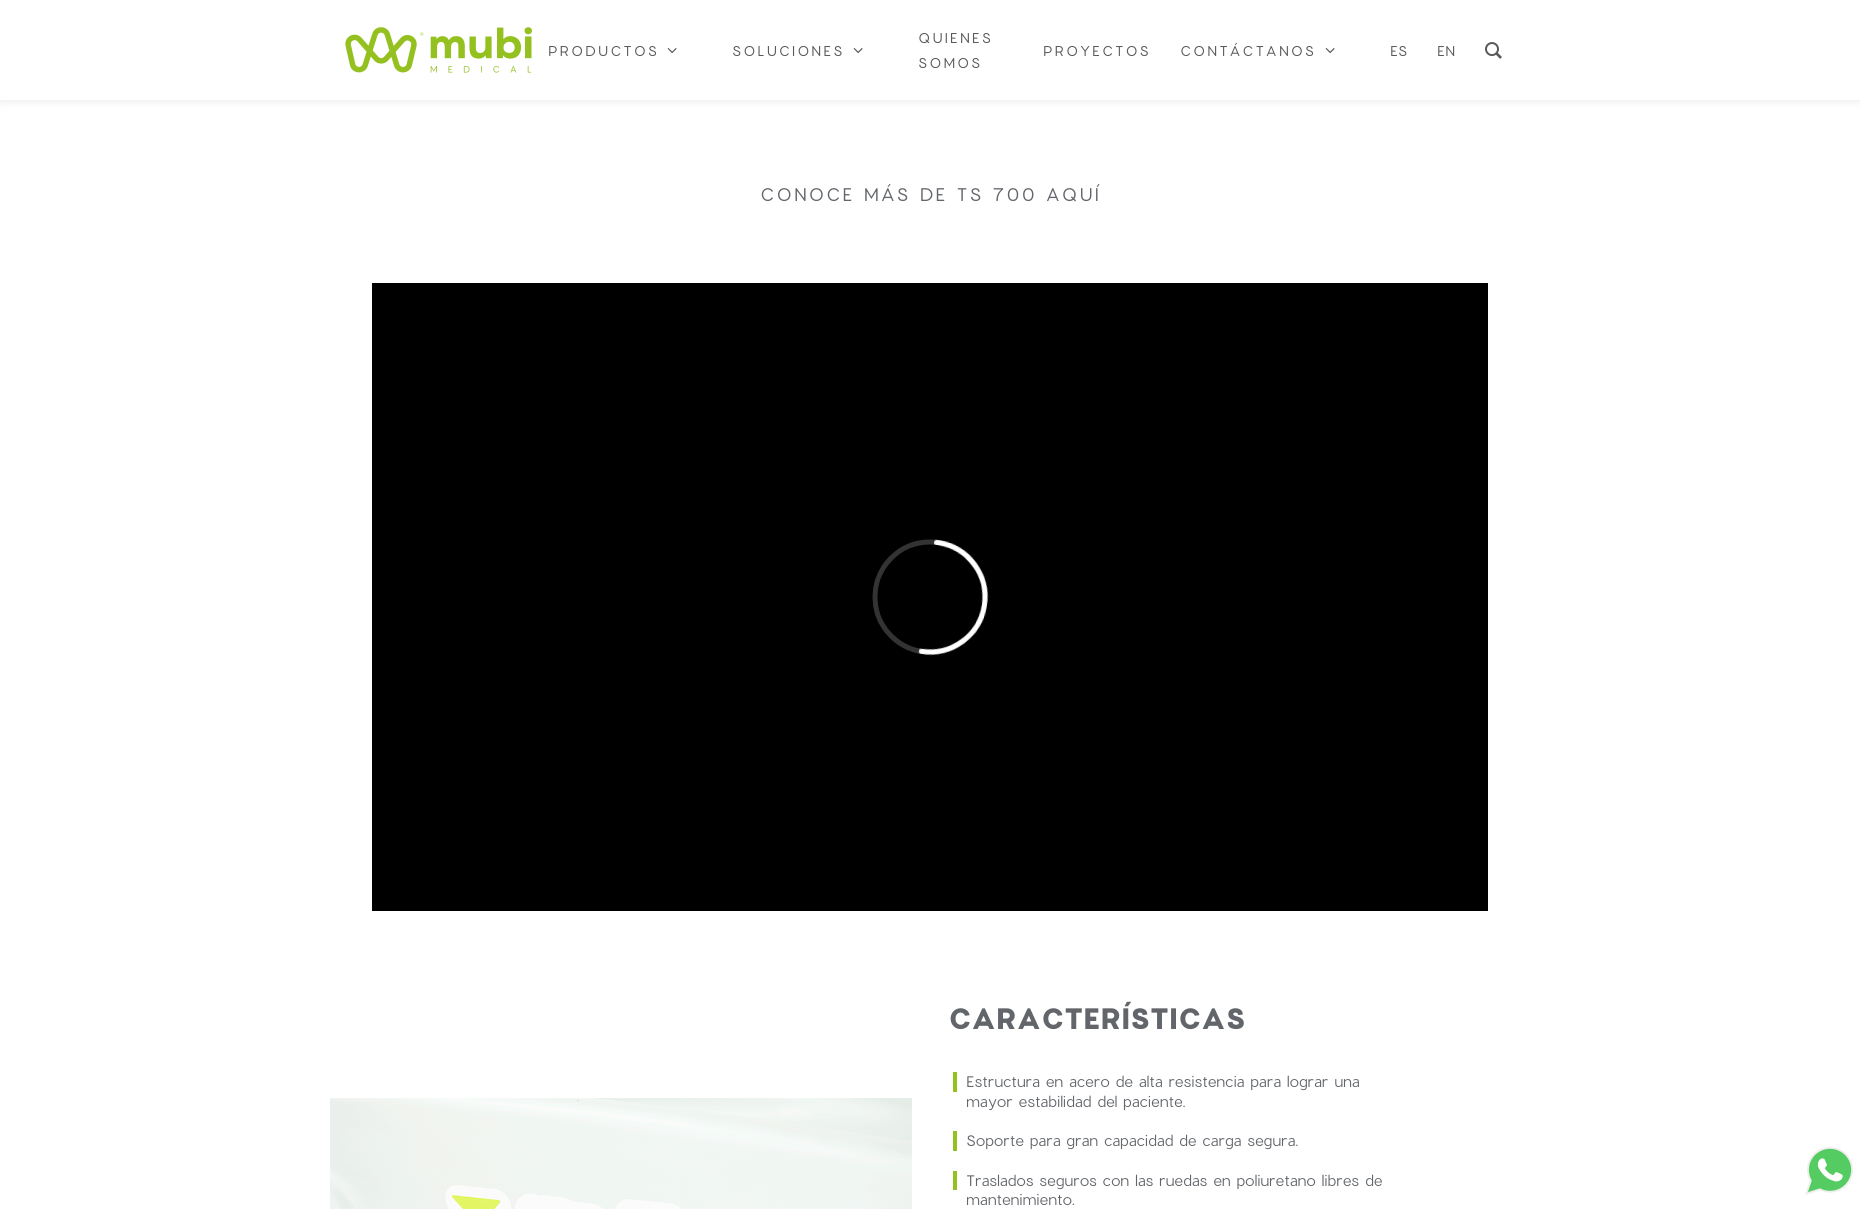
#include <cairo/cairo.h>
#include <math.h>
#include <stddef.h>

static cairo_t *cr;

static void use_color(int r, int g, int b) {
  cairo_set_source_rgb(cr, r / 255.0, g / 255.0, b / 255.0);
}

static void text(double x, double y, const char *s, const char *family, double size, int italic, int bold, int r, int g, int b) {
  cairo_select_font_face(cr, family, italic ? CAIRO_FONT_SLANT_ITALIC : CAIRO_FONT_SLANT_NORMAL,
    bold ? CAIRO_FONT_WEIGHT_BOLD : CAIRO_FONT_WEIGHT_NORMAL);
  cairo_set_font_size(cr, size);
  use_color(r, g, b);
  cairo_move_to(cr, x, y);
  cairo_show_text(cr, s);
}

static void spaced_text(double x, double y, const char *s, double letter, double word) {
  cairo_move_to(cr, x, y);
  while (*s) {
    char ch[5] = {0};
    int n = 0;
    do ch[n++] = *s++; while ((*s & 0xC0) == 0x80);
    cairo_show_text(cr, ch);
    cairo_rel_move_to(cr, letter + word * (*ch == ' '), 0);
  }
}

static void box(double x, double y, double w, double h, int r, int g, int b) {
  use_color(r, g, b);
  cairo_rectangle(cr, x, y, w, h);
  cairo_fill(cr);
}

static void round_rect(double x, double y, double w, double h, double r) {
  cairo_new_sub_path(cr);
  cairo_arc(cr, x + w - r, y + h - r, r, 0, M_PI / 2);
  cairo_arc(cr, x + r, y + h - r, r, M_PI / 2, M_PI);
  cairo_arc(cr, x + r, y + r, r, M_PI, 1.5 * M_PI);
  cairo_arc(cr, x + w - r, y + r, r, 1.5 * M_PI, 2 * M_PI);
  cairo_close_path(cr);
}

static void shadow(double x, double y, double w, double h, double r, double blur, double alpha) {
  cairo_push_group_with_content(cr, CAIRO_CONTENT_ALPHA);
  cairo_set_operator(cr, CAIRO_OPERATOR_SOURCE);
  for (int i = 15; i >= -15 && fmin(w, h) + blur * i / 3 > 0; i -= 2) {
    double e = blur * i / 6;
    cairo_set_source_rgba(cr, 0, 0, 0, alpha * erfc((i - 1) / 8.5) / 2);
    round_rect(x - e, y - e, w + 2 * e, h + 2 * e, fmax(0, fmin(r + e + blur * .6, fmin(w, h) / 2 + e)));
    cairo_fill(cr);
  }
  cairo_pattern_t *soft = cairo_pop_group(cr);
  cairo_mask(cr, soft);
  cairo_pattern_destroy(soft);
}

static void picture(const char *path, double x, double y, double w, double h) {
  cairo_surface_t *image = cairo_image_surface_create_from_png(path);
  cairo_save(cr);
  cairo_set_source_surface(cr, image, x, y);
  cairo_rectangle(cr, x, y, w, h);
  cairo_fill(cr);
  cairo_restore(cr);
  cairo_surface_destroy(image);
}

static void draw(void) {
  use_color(255, 255, 255);
  cairo_paint(cr);
  use_color(0, 0, 0);
  shadow(0, 0, 1860, 100, 0, 5, 0.1);
  box(0, 0, 1860, 100, 255, 255, 255);
  picture("img_01.png", 345, 27, 187, 46);
  picture("img_02.png", 667, 48, 10, 6);
  picture("img_02.png", 853, 48, 10, 6);
  picture("img_02.png", 1325, 48, 10, 6);
  picture("img_03.png", 1485, 42, 17, 17);
  picture("img_04.png", 372, 283, 1116, 628);
  picture("img_05.png", 330, 1098, 582, 111);
  box(953, 1072, 4, 20, 148, 193, 31);
  box(953, 1131, 4, 20, 148, 193, 31);
  box(953, 1171, 4, 19, 148, 193, 31);
  picture("img_06.png", 1805, 1147, 48, 48);
  cairo_select_font_face(cr, "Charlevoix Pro", CAIRO_FONT_SLANT_NORMAL, CAIRO_FONT_WEIGHT_NORMAL);
  cairo_set_font_size(cr, 14);
  use_color(90, 90, 90);
  spaced_text(548, 56, "PRODUCTOS", 2, 0);
  spaced_text(732, 56, "SOLUCIONES", 2, 0);
  spaced_text(918, 43, "QUIENES", 2, 0);
  spaced_text(918, 68, "SOMOS", 2, 0);
  spaced_text(1043, 56, "PROYECTOS", 2, 0);
  spaced_text(1180, 56, "CONTÁCTANOS", 2, 0);
  text(1390, 56, "ES", "Charlevoix Pro", 14, 0, 0, 90, 90, 90);
  text(1437, 56, "EN", "Charlevoix Pro", 14, 0, 0, 90, 90, 90);
  cairo_set_font_size(cr, 18);
  use_color(98, 101, 106);
  spaced_text(760, 201, "CONOCE MÁS DE TS 700 AQUÍ", 2, 0);
  text(948, 1029, "CARACTERÍSTICAS", "Charlevoix Pro", 29, 0, 1, 98, 101, 106);
  text(966, 1087, "Estructura en acero de alta resistencia para lograr una", "Charlevoix Pro", 15, 0, 0, 98, 101, 106);
  text(966, 1107, "mayor estabilidad del paciente.", "Charlevoix Pro", 15, 0, 0, 98, 101, 106);
  text(966, 1146, "Soporte para gran capacidad de carga segura.", "Charlevoix Pro", 15, 0, 0, 98, 101, 106);
  text(966, 1186, "Traslados seguros con las ruedas en poliuretano libres de", "Charlevoix Pro", 15, 0, 0, 98, 101, 106);
  text(966, 1205, "mantenimiento.", "Charlevoix Pro", 15, 0, 0, 98, 101, 106);
}

int main(void) {
  cairo_surface_t *surface = cairo_image_surface_create(CAIRO_FORMAT_RGB24, 1860, 1209);
  cr = cairo_create(surface);
  cairo_font_options_t *options = cairo_font_options_create();
  cairo_font_options_set_hint_metrics(options, CAIRO_HINT_METRICS_OFF);
  cairo_font_options_set_hint_style(options, CAIRO_HINT_STYLE_NONE);
  cairo_set_font_options(cr, options);
  cairo_set_miter_limit(cr, 4);
  draw();
  cairo_surface_write_to_png(surface, "out.png");
  cairo_font_options_destroy(options);
  cairo_destroy(cr);
  cairo_surface_destroy(surface);
  return 0;
}
